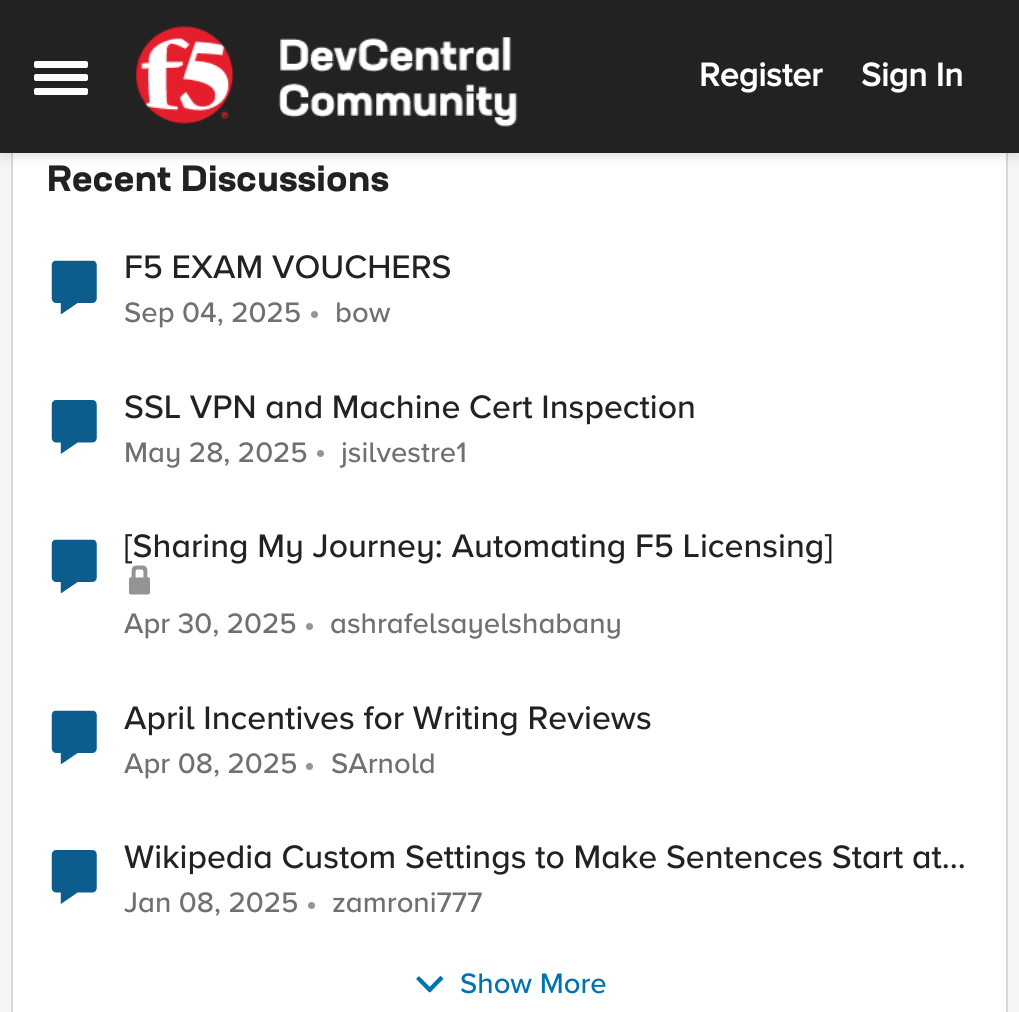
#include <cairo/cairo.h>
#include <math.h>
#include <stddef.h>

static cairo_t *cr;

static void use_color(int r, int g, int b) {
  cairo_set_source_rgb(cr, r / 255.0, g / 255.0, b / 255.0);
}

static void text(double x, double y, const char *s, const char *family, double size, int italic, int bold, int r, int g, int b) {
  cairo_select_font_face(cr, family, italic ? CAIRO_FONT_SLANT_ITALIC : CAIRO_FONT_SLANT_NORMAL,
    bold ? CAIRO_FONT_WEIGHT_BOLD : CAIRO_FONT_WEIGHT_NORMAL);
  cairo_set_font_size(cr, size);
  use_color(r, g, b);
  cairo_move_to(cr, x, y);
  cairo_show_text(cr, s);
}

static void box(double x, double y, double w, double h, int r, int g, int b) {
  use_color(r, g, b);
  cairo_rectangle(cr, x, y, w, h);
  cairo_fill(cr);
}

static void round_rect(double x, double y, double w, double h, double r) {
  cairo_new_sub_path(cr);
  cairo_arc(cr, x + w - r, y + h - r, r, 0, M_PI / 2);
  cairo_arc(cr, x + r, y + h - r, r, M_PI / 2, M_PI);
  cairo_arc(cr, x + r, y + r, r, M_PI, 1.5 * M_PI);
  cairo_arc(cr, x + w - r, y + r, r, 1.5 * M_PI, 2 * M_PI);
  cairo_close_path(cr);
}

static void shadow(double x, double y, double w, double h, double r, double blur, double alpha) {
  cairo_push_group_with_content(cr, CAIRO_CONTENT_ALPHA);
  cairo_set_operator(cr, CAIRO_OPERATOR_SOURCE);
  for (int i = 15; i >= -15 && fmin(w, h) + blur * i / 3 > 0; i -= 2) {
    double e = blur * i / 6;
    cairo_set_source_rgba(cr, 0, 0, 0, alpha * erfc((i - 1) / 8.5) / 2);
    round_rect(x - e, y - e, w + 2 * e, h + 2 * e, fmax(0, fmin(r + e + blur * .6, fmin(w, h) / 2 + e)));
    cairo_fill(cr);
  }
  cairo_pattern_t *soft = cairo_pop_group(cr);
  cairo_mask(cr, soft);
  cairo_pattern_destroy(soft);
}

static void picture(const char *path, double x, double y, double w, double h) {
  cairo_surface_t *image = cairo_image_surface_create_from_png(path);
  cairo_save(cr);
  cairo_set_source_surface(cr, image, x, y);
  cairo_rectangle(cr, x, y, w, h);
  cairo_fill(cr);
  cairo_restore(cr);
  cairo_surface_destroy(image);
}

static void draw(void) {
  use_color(245, 245, 245);
  cairo_paint(cr);
  box(11, 153, 997, 859, 255, 255, 255);
  cairo_rectangle(cr, 12, 118, 995, 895);
  cairo_set_source_rgba(cr, 0, 0, 0, 0.16);
  cairo_stroke(cr);
  use_color(51, 51, 51);
  shadow(0, 5, 1019, 153, 0, 4.5, 0.12);
  box(0, 0, 1019, 153, 34, 34, 34);
  use_color(255, 255, 255);
  round_rect(34, 61, 54, 7, 2);
  cairo_fill(cr);
  round_rect(34, 74, 54, 7, 2);
  cairo_fill(cr);
  round_rect(34, 88, 54, 7, 2);
  cairo_fill(cr);
  picture("img_01.png", 136, 26, 382, 101);
  picture("img_02.png", 51, 260, 46, 55);
  use_color(148, 148, 148);
  cairo_arc(cr, 314.5, 314.5, 3.5, 0, 2 * M_PI);
  cairo_fill(cr);
  picture("img_03.png", 51, 400, 46, 54);
  cairo_arc(cr, 320.5, 453.5, 3.5, 0, 2 * M_PI);
  cairo_fill(cr);
  picture("img_02.png", 51, 539, 46, 55);
  picture("img_04.png", 129, 565, 21, 30);
  cairo_arc(cr, 309.5, 626.5, 3.5, 0, 2 * M_PI);
  cairo_fill(cr);
  picture("img_02.png", 51, 710, 46, 55);
  cairo_arc(cr, 309.5, 766.5, 3.5, 0, 2 * M_PI);
  cairo_fill(cr);
  picture("img_05.png", 51, 850, 46, 54);
  cairo_arc(cr, 311.5, 905.5, 3.5, 0, 2 * M_PI);
  cairo_fill(cr);
  picture("img_06.png", 416, 976, 28, 17);
  text(699, 86, "Register", "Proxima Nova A", 33.75, 0, 1, 255, 255, 255);
  text(861, 86, "Sign In", "Proxima Nova A", 33.75, 0, 1, 255, 255, 255);
  text(47, 191, "Recent Discussions", "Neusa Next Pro", 36, 0, 1, 34, 34, 34);
  text(124, 278, "F5 EXAM VOUCHERS", "Proxima Nova A Medium", 33.75, 0, 0, 34, 34, 34);
  text(124, 322, "Sep 04, 2025", "Proxima Nova A Medium", 29.25, 0, 0, 112, 112, 112);
  text(335, 322, "bow", "Proxima Nova A Medium", 29.25, 0, 0, 112, 112, 112);
  text(124, 418, "SSL VPN and Machine Cert Inspection", "Proxima Nova A Medium", 33.75, 0, 0, 34, 34, 34);
  text(124, 462, "May 28, 2025", "Proxima Nova A Medium", 29.25, 0, 0, 112, 112, 112);
  text(341, 462, "jsilvestre1", "Proxima Nova A Medium", 29.25, 0, 0, 112, 112, 112);
  text(124, 557, "[Sharing My Journey: Automating F5 Licensing]", "Proxima Nova A Medium", 33.75, 0, 0, 34, 34, 34);
  text(124, 633, "Apr 30, 2025", "Proxima Nova A Medium", 29.25, 0, 0, 112, 112, 112);
  text(330, 633, "ashrafelsayelshabany", "Proxima Nova A Medium", 29.25, 0, 0, 112, 112, 112);
  text(124, 729, "April Incentives for Writing Reviews", "Proxima Nova A Medium", 33.75, 0, 0, 34, 34, 34);
  text(124, 773, "Apr 08, 2025", "Proxima Nova A Medium", 29.25, 0, 0, 112, 112, 112);
  text(331, 773, "SArnold", "Proxima Nova A Medium", 29.25, 0, 0, 112, 112, 112);
  text(124, 868, "Wikipedia Custom Settings to Make Sentences Start at…", "Proxima Nova A Medium", 33.75, 0, 0, 34, 34, 34);
  text(124, 912, "Jan 08, 2025", "Proxima Nova A Medium", 29.25, 0, 0, 112, 112, 112);
  text(332, 912, "zamroni777", "Proxima Nova A Medium", 29.25, 0, 0, 112, 112, 112);
  text(460, 993, "Show More", "Proxima Nova A Medium", 29.25, 0, 0, 0, 114, 176);
}

int main(void) {
  cairo_surface_t *surface = cairo_image_surface_create(CAIRO_FORMAT_RGB24, 1019, 1012);
  cr = cairo_create(surface);
  cairo_font_options_t *options = cairo_font_options_create();
  cairo_font_options_set_hint_metrics(options, CAIRO_HINT_METRICS_OFF);
  cairo_font_options_set_hint_style(options, CAIRO_HINT_STYLE_NONE);
  cairo_set_font_options(cr, options);
  cairo_set_miter_limit(cr, 4);
  draw();
  cairo_surface_write_to_png(surface, "out.png");
  cairo_font_options_destroy(options);
  cairo_destroy(cr);
  cairo_surface_destroy(surface);
  return 0;
}
